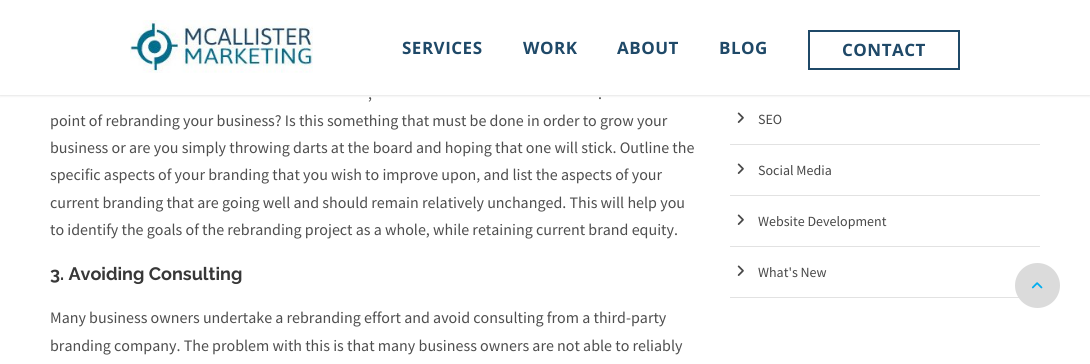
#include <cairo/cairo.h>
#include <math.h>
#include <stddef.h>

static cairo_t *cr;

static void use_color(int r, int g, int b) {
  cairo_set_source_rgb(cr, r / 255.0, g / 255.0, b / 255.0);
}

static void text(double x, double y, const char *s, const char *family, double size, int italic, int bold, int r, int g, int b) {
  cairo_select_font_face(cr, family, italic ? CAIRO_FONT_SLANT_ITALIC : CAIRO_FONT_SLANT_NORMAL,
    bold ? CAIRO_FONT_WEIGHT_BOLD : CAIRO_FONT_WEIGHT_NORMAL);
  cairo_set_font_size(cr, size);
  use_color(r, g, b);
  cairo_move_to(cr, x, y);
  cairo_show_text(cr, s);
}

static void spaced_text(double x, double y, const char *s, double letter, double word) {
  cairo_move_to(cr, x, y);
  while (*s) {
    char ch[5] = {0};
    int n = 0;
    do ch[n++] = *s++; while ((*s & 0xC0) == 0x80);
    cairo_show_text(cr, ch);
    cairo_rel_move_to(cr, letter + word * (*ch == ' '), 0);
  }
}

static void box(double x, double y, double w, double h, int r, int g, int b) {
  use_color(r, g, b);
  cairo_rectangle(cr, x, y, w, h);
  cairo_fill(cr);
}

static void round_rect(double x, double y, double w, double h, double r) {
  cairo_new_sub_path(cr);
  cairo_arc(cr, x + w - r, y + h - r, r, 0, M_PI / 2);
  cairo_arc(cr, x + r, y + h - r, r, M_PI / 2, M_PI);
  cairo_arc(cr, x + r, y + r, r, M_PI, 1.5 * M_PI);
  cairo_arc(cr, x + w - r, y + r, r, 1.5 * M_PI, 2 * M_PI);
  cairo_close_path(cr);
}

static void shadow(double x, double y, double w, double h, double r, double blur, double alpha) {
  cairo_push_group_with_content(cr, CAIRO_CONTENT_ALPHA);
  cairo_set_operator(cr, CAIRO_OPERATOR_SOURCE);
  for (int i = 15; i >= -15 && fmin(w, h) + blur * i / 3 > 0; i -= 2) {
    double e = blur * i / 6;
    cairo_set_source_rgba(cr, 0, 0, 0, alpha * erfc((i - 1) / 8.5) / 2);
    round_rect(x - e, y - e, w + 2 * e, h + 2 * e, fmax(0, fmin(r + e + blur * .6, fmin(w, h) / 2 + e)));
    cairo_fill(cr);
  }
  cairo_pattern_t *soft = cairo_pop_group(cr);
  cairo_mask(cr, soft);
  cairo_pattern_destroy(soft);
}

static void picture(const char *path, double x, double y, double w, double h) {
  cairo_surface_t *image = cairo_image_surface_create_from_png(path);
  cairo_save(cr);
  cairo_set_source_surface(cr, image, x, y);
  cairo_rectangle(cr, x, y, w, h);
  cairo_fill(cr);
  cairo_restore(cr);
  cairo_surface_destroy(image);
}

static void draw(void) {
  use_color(255, 255, 255);
  cairo_paint(cr);
  use_color(0, 0, 0);
  shadow(0, 1, 1090, 95, 0, 1, 0.1);
  box(0, 0, 1090, 95, 255, 255, 255);
  picture("img_01.png", 130, 20, 183, 53);
  cairo_rectangle(cr, 809, 31, 150, 38);
  use_color(31, 73, 104);
  cairo_stroke(cr);
  box(730, 144, 310, 1, 226, 226, 226);
  picture("img_02.png", 737, 112, 7, 11);
  box(730, 195, 310, 1, 226, 226, 226);
  picture("img_02.png", 737, 163, 7, 11);
  box(730, 246, 310, 1, 226, 226, 226);
  picture("img_02.png", 737, 214, 7, 11);
  box(730, 297, 289, 1, 226, 226, 226);
  picture("img_02.png", 737, 265, 7, 11);
  use_color(219, 219, 219);
  cairo_arc(cr, 1037.5, 285.5, 22.5, 0, 2 * M_PI);
  cairo_fill(cr);
  picture("img_03.png", 1031, 282, 12, 7);
  cairo_select_font_face(cr, "Open Sans", CAIRO_FONT_SLANT_NORMAL, CAIRO_FONT_WEIGHT_BOLD);
  cairo_set_font_size(cr, 17);
  use_color(31, 73, 104);
  spaced_text(402, 54, "SERVICES", 0.5, 0);
  spaced_text(523, 54, "WORK", 0.5, 0);
  spaced_text(617, 54, "ABOUT", 0.5, 0);
  spaced_text(719, 54, "BLOG", 0.5, 0);
  spaced_text(842, 56, "CONTACT", 0.5, 0);
  text(368, 99, ",", "Source Sans Pro", 16, 0, 0, 78, 78, 78);
  text(598, 99, ".", "Source Sans Pro", 16, 0, 0, 78, 78, 78);
  text(50, 126, "point of rebranding your business? Is this something that must be done in order to grow your", "Source Sans Pro", 16, 0, 0, 78, 78, 78);
  text(50, 153, "business or are you simply throwing darts at the board and hoping that one will stick. Outline the", "Source Sans Pro", 16, 0, 0, 78, 78, 78);
  text(50, 180, "specific aspects of your branding that you wish to improve upon, and list the aspects of your", "Source Sans Pro", 16, 0, 0, 78, 78, 78);
  text(50, 208, "current branding that are going well and should remain relatively unchanged. This will help you", "Source Sans Pro", 16, 0, 0, 78, 78, 78);
  text(50, 235, "to identify the goals of the rebranding project as a whole, while retaining current brand equity.", "Source Sans Pro", 16, 0, 0, 78, 78, 78);
  text(50, 280, "3. Avoiding Consulting", "Raleway", 18, 0, 1, 56, 56, 56);
  text(50, 323, "Many business owners undertake a rebranding effort and avoid consulting from a third-party", "Source Sans Pro", 16, 0, 0, 78, 78, 78);
  text(50, 351, "branding company. The problem with this is that many business owners are not able to reliably", "Source Sans Pro", 16, 0, 0, 78, 78, 78);
  text(758, 124, "SEO", "Source Sans Pro", 14, 0, 0, 72, 72, 72);
  text(758, 175, "Social Media", "Source Sans Pro", 14, 0, 0, 72, 72, 72);
  text(758, 226, "Website Development", "Source Sans Pro", 14, 0, 0, 72, 72, 72);
  text(758, 277, "What's New", "Source Sans Pro", 14, 0, 0, 72, 72, 72);
}

int main(void) {
  cairo_surface_t *surface = cairo_image_surface_create(CAIRO_FORMAT_RGB24, 1090, 364);
  cr = cairo_create(surface);
  cairo_font_options_t *options = cairo_font_options_create();
  cairo_font_options_set_hint_metrics(options, CAIRO_HINT_METRICS_OFF);
  cairo_font_options_set_hint_style(options, CAIRO_HINT_STYLE_NONE);
  cairo_set_font_options(cr, options);
  cairo_set_miter_limit(cr, 4);
  draw();
  cairo_surface_write_to_png(surface, "out.png");
  cairo_font_options_destroy(options);
  cairo_destroy(cr);
  cairo_surface_destroy(surface);
  return 0;
}
